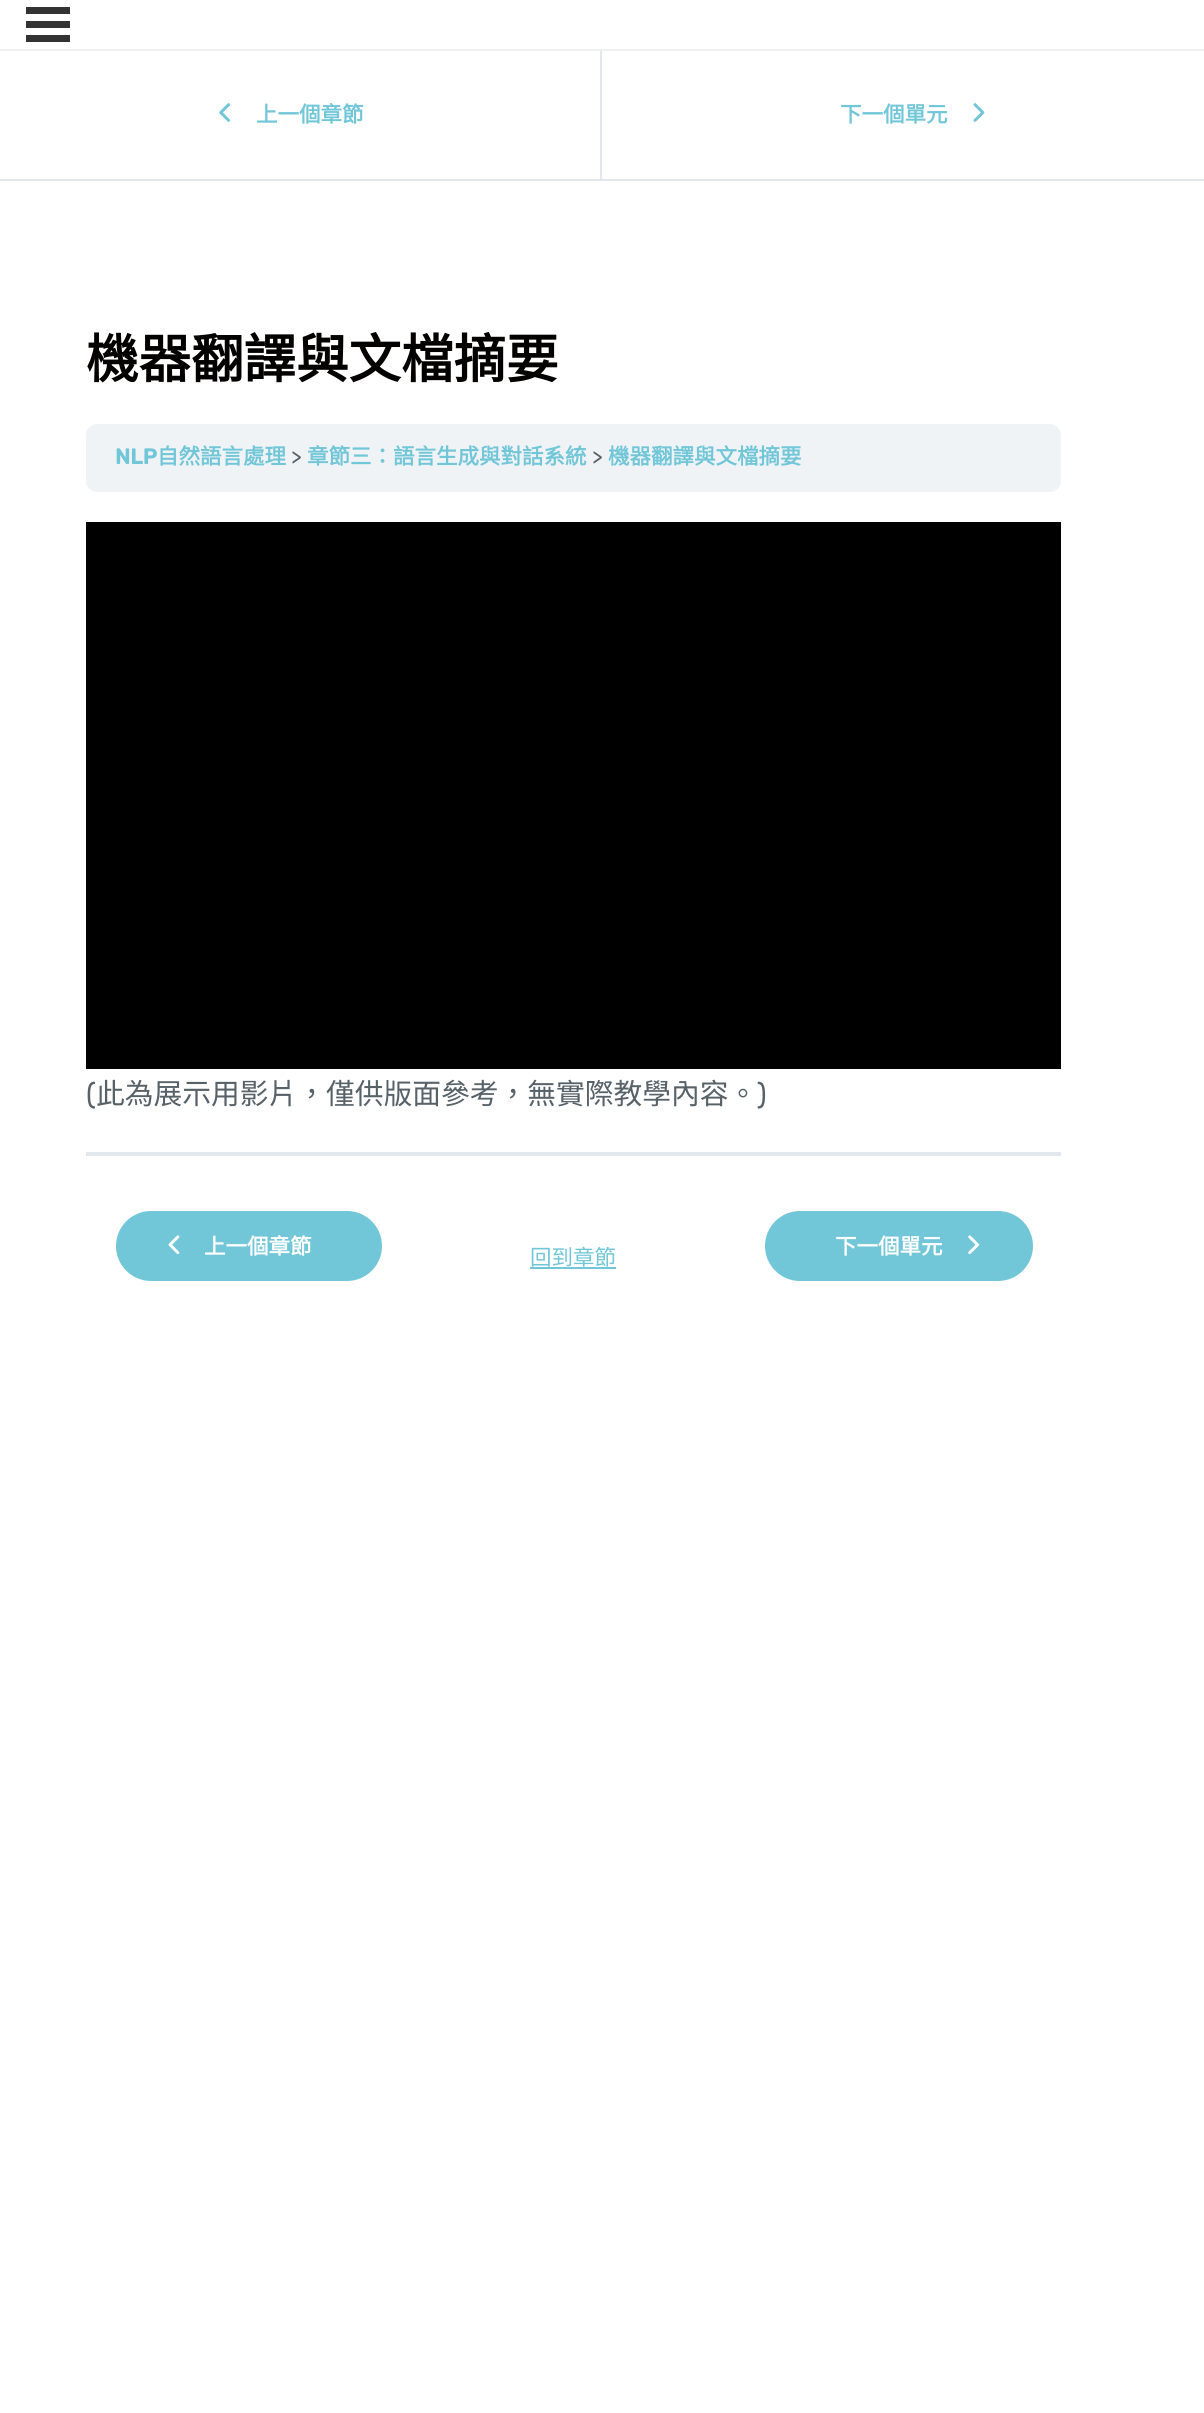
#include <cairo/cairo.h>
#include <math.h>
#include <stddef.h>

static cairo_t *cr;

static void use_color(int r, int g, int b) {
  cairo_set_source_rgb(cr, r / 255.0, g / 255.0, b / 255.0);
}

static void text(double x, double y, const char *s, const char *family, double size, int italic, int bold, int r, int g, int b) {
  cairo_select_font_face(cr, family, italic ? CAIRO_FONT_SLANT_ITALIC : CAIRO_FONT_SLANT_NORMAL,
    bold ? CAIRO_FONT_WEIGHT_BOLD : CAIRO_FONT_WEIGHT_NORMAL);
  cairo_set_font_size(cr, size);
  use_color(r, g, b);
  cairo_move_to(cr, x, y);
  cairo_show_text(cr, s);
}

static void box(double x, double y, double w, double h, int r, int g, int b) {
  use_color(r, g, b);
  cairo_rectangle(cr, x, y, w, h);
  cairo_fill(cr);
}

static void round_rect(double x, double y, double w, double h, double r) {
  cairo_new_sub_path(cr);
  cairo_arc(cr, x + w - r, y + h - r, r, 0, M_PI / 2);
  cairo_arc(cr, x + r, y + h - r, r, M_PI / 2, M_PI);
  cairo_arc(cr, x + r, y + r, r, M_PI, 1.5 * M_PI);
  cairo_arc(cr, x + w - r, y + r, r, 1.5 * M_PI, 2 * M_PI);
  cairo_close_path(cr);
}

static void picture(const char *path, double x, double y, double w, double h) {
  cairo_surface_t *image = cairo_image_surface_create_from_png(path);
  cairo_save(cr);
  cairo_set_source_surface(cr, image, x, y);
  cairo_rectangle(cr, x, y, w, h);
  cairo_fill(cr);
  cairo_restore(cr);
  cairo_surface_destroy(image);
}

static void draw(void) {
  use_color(255, 255, 255);
  cairo_paint(cr);
  box(0, 179, 1204, 2, 226, 231, 237);
  box(26, 7, 44, 7, 51, 51, 51);
  box(26, 21, 44, 7, 51, 51, 51);
  box(26, 35, 44, 7, 51, 51, 51);
  box(0, 49, 1204, 2, 239, 239, 239);
  box(600, 51, 2, 128, 226, 231, 237);
  picture("img_01.png", 219, 103, 12, 19);
  picture("img_02.png", 973, 103, 12, 19);
  use_color(240, 243, 246);
  round_rect(86, 424, 975, 68, 11);
  cairo_fill(cr);
  box(86, 522, 975, 547, 0, 0, 0);
  box(86, 1152, 975, 4, 226, 231, 237);
  use_color(113, 198, 216);
  round_rect(116, 1211, 266, 70, 35);
  cairo_fill(cr);
  picture("img_03.png", 168, 1235, 12, 20);
  box(530, 1267, 86, 2, 113, 198, 216);
  round_rect(765, 1211, 268, 70, 35);
  cairo_fill(cr);
  picture("img_04.png", 968, 1235, 12, 20);
  text(256, 122, "上一個章節", "Noto Sans CJK TC", 21.5, 0, 1, 113, 198, 216);
  text(840, 122, "下一個單元", "Noto Sans CJK TC", 21.5, 0, 1, 113, 198, 216);
  text(86, 378, "機器翻譯與文檔摘要", "Noto Sans CJK TC", 52.5, 0, 1, 3, 0, 0);
  text(115, 464, "NLP", "Rubik", 21.5, 0, 1, 113, 198, 216);
  text(157, 464, "自然語言處理", "Noto Sans CJK TC", 21.5, 0, 1, 113, 198, 216);
  text(291, 464, ">", "Rubik", 21.5, 0, 0, 87, 97, 104);
  text(307, 464, "章節三：語言生成與對話系統", "Noto Sans CJK TC", 21.5, 0, 1, 113, 198, 216);
  text(592, 464, ">", "Rubik", 21.5, 0, 0, 87, 97, 104);
  text(608, 464, "機器翻譯與文檔摘要", "Noto Sans CJK TC", 21.5, 0, 1, 113, 198, 216);
  text(86, 1104, "(", "Rubik", 28.75, 0, 0, 87, 97, 104);
  text(96, 1104, "此為展示用影片，僅供版面參考，無實際教學內容。", "Noto Sans CJK TC", 28.75, 0, 0, 87, 97, 104);
  text(757, 1104, ")", "Rubik", 28.75, 0, 0, 87, 97, 104);
  text(204, 1254, "上一個章節", "Noto Sans CJK TC", 21.5, 0, 1, 255, 255, 255);
  text(530, 1265, "回到章節", "Noto Sans CJK TC", 21.5, 0, 0, 113, 198, 216);
  text(835, 1254, "下一個單元", "Noto Sans CJK TC", 21.5, 0, 1, 255, 255, 255);
}

int main(void) {
  cairo_surface_t *surface = cairo_image_surface_create(CAIRO_FORMAT_RGB24, 1204, 2413);
  cr = cairo_create(surface);
  cairo_font_options_t *options = cairo_font_options_create();
  cairo_font_options_set_hint_metrics(options, CAIRO_HINT_METRICS_OFF);
  cairo_font_options_set_hint_style(options, CAIRO_HINT_STYLE_NONE);
  cairo_set_font_options(cr, options);
  cairo_set_miter_limit(cr, 4);
  draw();
  cairo_surface_write_to_png(surface, "out.png");
  cairo_font_options_destroy(options);
  cairo_destroy(cr);
  cairo_surface_destroy(surface);
  return 0;
}
